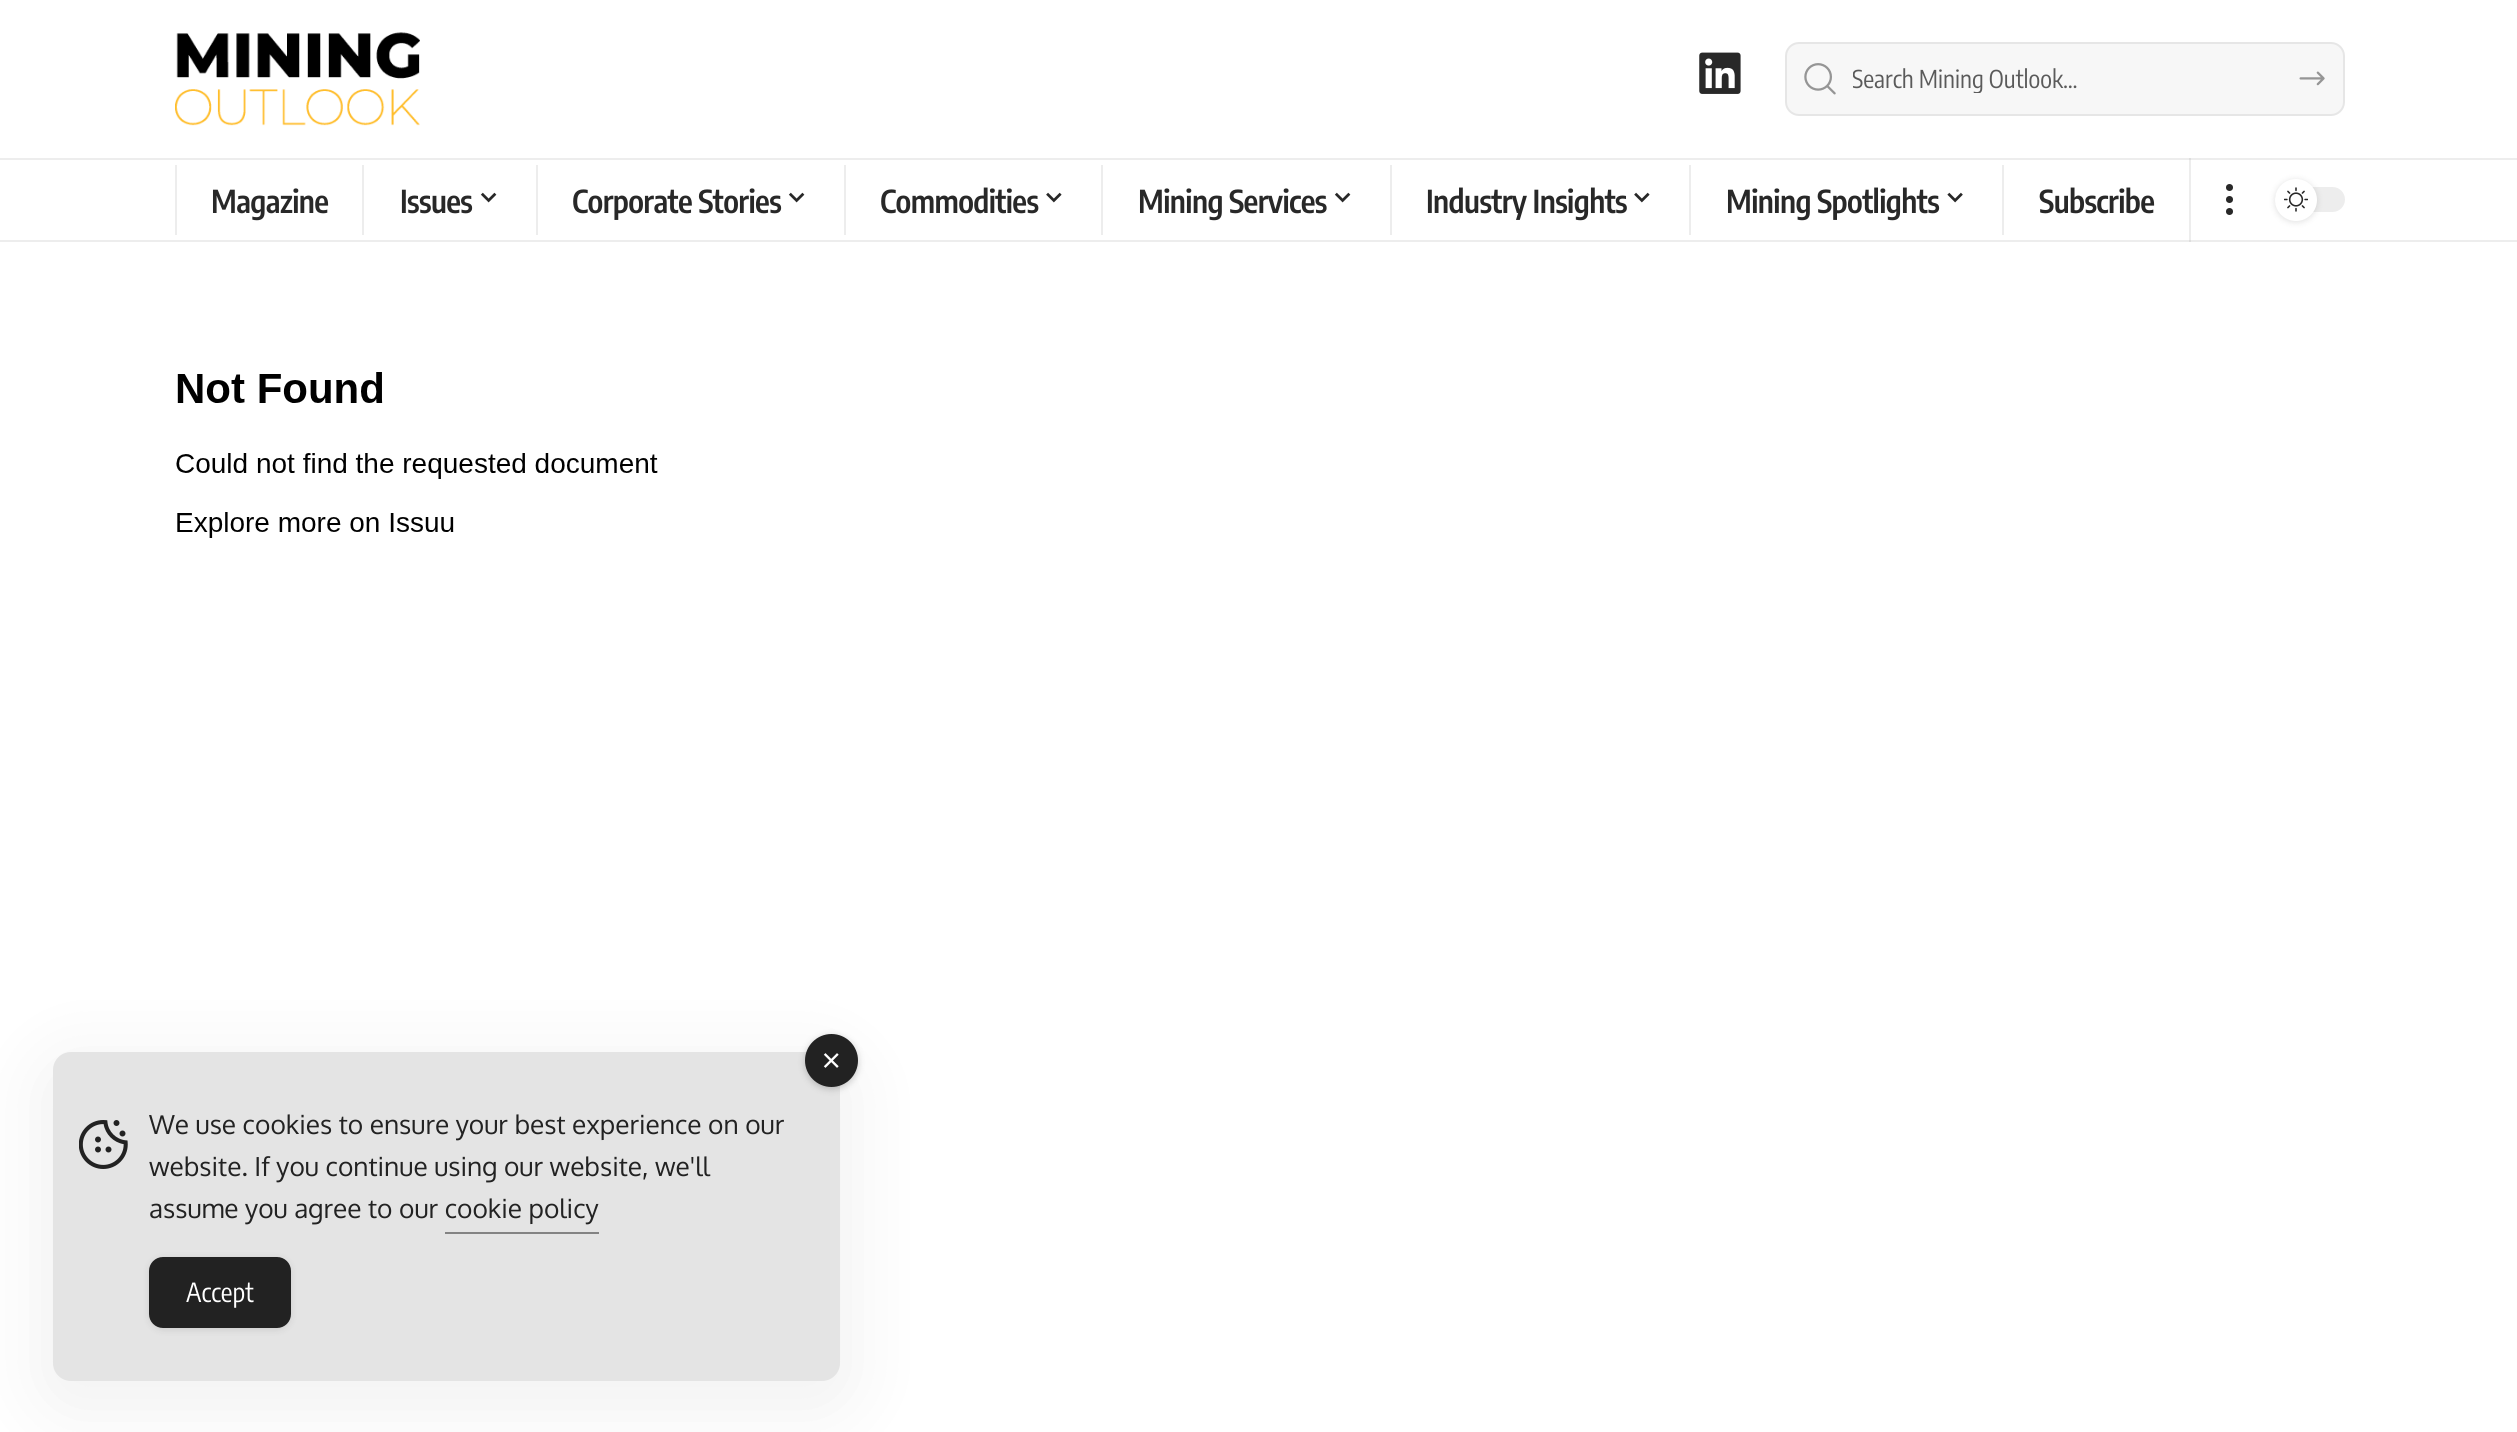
#include <cairo/cairo.h>
#include <math.h>
#include <stddef.h>

static cairo_t *cr;

static void use_color(int r, int g, int b) {
  cairo_set_source_rgb(cr, r / 255.0, g / 255.0, b / 255.0);
}

static void text(double x, double y, const char *s, const char *family, double size, int italic, int bold, int r, int g, int b) {
  cairo_select_font_face(cr, family, italic ? CAIRO_FONT_SLANT_ITALIC : CAIRO_FONT_SLANT_NORMAL,
    bold ? CAIRO_FONT_WEIGHT_BOLD : CAIRO_FONT_WEIGHT_NORMAL);
  cairo_set_font_size(cr, size);
  use_color(r, g, b);
  cairo_move_to(cr, x, y);
  cairo_show_text(cr, s);
}

static void spaced_text(double x, double y, const char *s, double letter, double word) {
  cairo_move_to(cr, x, y);
  while (*s) {
    char ch[5] = {0};
    int n = 0;
    do ch[n++] = *s++; while ((*s & 0xC0) == 0x80);
    cairo_show_text(cr, ch);
    cairo_rel_move_to(cr, letter + word * (*ch == ' '), 0);
  }
}

static void box(double x, double y, double w, double h, int r, int g, int b) {
  use_color(r, g, b);
  cairo_rectangle(cr, x, y, w, h);
  cairo_fill(cr);
}

static void round_rect(double x, double y, double w, double h, double r) {
  cairo_new_sub_path(cr);
  cairo_arc(cr, x + w - r, y + h - r, r, 0, M_PI / 2);
  cairo_arc(cr, x + r, y + h - r, r, M_PI / 2, M_PI);
  cairo_arc(cr, x + r, y + r, r, M_PI, 1.5 * M_PI);
  cairo_arc(cr, x + w - r, y + r, r, 1.5 * M_PI, 2 * M_PI);
  cairo_close_path(cr);
}

static void shadow(double x, double y, double w, double h, double r, double blur, double alpha) {
  cairo_push_group_with_content(cr, CAIRO_CONTENT_ALPHA);
  cairo_set_operator(cr, CAIRO_OPERATOR_SOURCE);
  for (int i = 15; i >= -15 && fmin(w, h) + blur * i / 3 > 0; i -= 2) {
    double e = blur * i / 6;
    cairo_set_source_rgba(cr, 0, 0, 0, alpha * erfc((i - 1) / 8.5) / 2);
    round_rect(x - e, y - e, w + 2 * e, h + 2 * e, fmax(0, fmin(r + e + blur * .6, fmin(w, h) / 2 + e)));
    cairo_fill(cr);
  }
  cairo_pattern_t *soft = cairo_pop_group(cr);
  cairo_mask(cr, soft);
  cairo_pattern_destroy(soft);
}

static void picture(const char *path, double x, double y, double w, double h) {
  cairo_surface_t *image = cairo_image_surface_create_from_png(path);
  cairo_save(cr);
  cairo_set_source_surface(cr, image, x, y);
  cairo_rectangle(cr, x, y, w, h);
  cairo_fill(cr);
  cairo_restore(cr);
  cairo_surface_destroy(image);
}

static void draw(void) {
  use_color(255, 255, 255);
  cairo_paint(cr);
  box(0, 240, 2517, 2, 237, 237, 237);
  box(2189, 158, 2, 84, 237, 237, 237);
  box(2189, 240, 2, 2, 222, 222, 222);
  picture("img_01.png", 175, 32, 245, 94);
  picture("img_02.png", 1699, 52, 42, 42);
  use_color(247, 247, 247);
  round_rect(1785, 42, 560, 74, 14);
  cairo_fill(cr);
  round_rect(1786, 43, 558, 72, 13);
  cairo_set_source_rgba(cr, 0.533, 0.533, 0.533, 0.15);
  cairo_stroke(cr);
  picture("img_03.png", 1804, 63, 32, 32);
  picture("img_04.png", 2299, 71, 26, 15);
  box(0, 158, 2517, 2, 237, 237, 237);
  box(2189, 158, 2, 2, 222, 222, 222);
  box(175, 165, 2, 70, 237, 237, 237);
  box(362, 165, 2, 70, 237, 237, 237);
  picture("img_05.png", 480, 192, 17, 11);
  box(536, 165, 2, 70, 237, 237, 237);
  picture("img_05.png", 788, 192, 17, 11);
  box(844, 165, 2, 70, 237, 237, 237);
  picture("img_06.png", 1046, 192, 16, 11);
  box(1101, 165, 2, 70, 237, 237, 237);
  picture("img_05.png", 1334, 192, 17, 11);
  box(1390, 165, 2, 70, 237, 237, 237);
  picture("img_06.png", 1634, 192, 16, 11);
  box(1689, 165, 2, 70, 237, 237, 237);
  picture("img_07.png", 1947, 192, 16, 11);
  box(2002, 165, 2, 70, 237, 237, 237);
  use_color(40, 40, 40);
  cairo_arc(cr, 2229.5, 187.5, 3.5, 0, 2 * M_PI);
  cairo_fill(cr);
  cairo_arc(cr, 2229.5, 199.5, 3.5, 0, 2 * M_PI);
  cairo_fill(cr);
  cairo_arc(cr, 2229.5, 211.5, 3.5, 0, 2 * M_PI);
  cairo_fill(cr);
  use_color(237, 237, 237);
  round_rect(2275, 187, 70, 25, 12.5);
  cairo_fill(cr);
  use_color(0, 0, 0);
  shadow(2275, 180, 42, 42, 21, 3.5, 0.12);
  use_color(255, 255, 255);
  cairo_arc(cr, 2296, 200, 21, 0, 2 * M_PI);
  cairo_fill(cr);
  picture("img_08.png", 2284, 187, 24, 25);
  picture("img_09.png", 176, 372, 482, 166);
  use_color(0, 0, 0);
  shadow(35, 1052, 823, 364, 35, 35, 0.05);
  use_color(228, 228, 228);
  round_rect(53, 1052, 787, 329, 18);
  cairo_fill(cr);
  use_color(0, 0, 0);
  shadow(805, 1036, 53, 53, 26.5, 3.5, 0.2);
  use_color(34, 34, 34);
  cairo_arc(cr, 831.5, 1060.5, 26.5, 0, 2 * M_PI);
  cairo_fill(cr);
  picture("img_10.png", 823, 1053, 16, 15);
  picture("img_11.png", 79, 1120, 49, 49);
  box(445, 1232, 154, 2, 131, 131, 131);
  use_color(0, 0, 0);
  shadow(149, 1258, 142, 72, 14, 3.5, 0.1);
  use_color(34, 34, 34);
  round_rect(150, 1258, 140, 69, 13);
  cairo_fill_preserve(cr);
  cairo_stroke(cr);
  cairo_save(cr);
  cairo_rectangle(cr, 1853, 63, 433, 30);
  cairo_clip(cr);
  text(1852, 88, "Search Mining Outlook…", "Encode Sans Condensed", 24.5, 0, 0, 90, 90, 90);
  cairo_restore(cr);
  cairo_select_font_face(cr, "Encode Sans Condensed SemiBold", CAIRO_FONT_SLANT_NORMAL, CAIRO_FONT_WEIGHT_NORMAL);
  cairo_set_font_size(cr, 31.5);
  use_color(40, 40, 40);
  spaced_text(211, 213, "Magazine", -0.6, 0);
  spaced_text(400, 213, "Issues", -0.6, 0);
  spaced_text(572, 213, "Corporate Stories", -0.6, 0);
  spaced_text(880, 213, "Commodities", -0.6, 0);
  spaced_text(1138, 213, "Mining Services", -0.6, 0);
  spaced_text(1426, 213, "Industry Insights", -0.6, 0);
  spaced_text(1726, 213, "Mining Spotlights", -0.6, 0);
  spaced_text(2039, 213, "Subscribe", -0.6, 0);
  text(149, 1134, "We use cookies to ensure your best experience on our", "Oxygen", 26.25, 0, 0, 34, 34, 34);
  text(149, 1176, "website. If you continue using our website, we'll", "Oxygen", 26.25, 0, 0, 34, 34, 34);
  text(149, 1218, "assume you agree to our cookie policy", "Oxygen", 26.25, 0, 0, 34, 34, 34);
  text(186, 1302, "Accept", "Encode Sans Condensed", 26.25, 0, 0, 255, 255, 255);
}

int main(void) {
  cairo_surface_t *surface = cairo_image_surface_create(CAIRO_FORMAT_RGB24, 2517, 1432);
  cr = cairo_create(surface);
  cairo_font_options_t *options = cairo_font_options_create();
  cairo_font_options_set_hint_metrics(options, CAIRO_HINT_METRICS_OFF);
  cairo_font_options_set_hint_style(options, CAIRO_HINT_STYLE_NONE);
  cairo_set_font_options(cr, options);
  cairo_set_miter_limit(cr, 4);
  draw();
  cairo_surface_write_to_png(surface, "out.png");
  cairo_font_options_destroy(options);
  cairo_destroy(cr);
  cairo_surface_destroy(surface);
  return 0;
}
